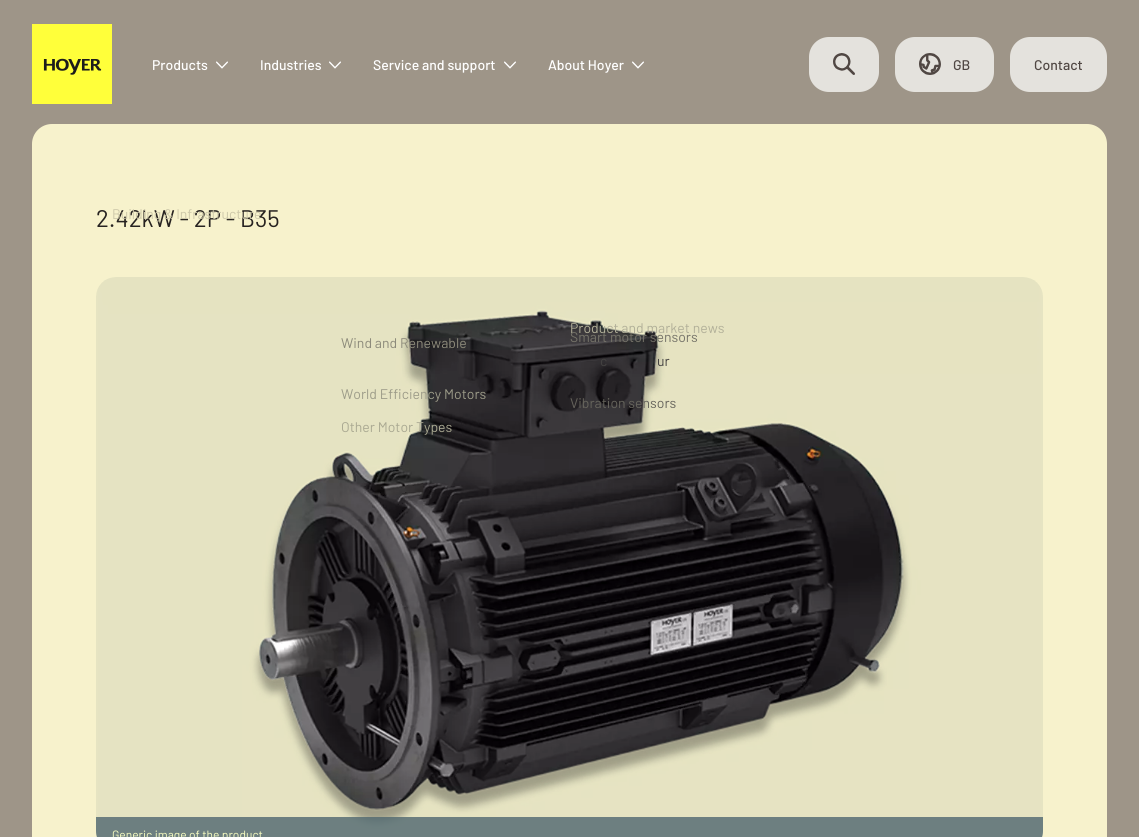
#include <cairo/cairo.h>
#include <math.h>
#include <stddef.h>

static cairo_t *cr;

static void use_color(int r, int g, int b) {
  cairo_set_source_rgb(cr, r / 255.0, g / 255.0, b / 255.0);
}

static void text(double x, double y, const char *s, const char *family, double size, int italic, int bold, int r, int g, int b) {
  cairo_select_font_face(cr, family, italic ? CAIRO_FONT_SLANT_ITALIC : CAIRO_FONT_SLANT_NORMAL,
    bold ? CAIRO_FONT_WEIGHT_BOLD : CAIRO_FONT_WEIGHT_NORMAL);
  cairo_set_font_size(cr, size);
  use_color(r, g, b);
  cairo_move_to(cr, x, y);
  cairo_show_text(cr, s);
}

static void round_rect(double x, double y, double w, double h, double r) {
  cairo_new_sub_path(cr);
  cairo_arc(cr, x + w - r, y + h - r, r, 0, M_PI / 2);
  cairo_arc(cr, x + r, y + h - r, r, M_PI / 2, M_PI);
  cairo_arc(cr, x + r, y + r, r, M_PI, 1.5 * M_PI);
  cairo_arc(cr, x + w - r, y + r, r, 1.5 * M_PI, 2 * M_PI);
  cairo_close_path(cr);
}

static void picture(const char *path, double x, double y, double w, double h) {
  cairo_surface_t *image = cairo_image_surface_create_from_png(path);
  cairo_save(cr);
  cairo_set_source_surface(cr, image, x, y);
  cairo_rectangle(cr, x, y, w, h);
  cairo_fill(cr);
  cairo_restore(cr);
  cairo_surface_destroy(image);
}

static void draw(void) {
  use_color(158, 149, 136);
  cairo_paint(cr);
  picture("img_01.png", 32, 24, 80, 80);
  picture("img_02.png", 329, 61, 12, 8);
  picture("img_02.png", 504, 61, 12, 8);
  picture("img_02.png", 216, 61, 12, 8);
  picture("img_02.png", 632, 61, 12, 8);
  use_color(228, 226, 221);
  round_rect(809, 37, 70, 55, 20);
  cairo_fill(cr);
  picture("img_03.png", 833, 53, 22, 22);
  round_rect(895, 37, 99, 55, 20);
  cairo_fill(cr);
  picture("img_04.png", 919, 53, 22, 22);
  round_rect(1010, 37, 97, 55, 20);
  cairo_fill(cr);
  use_color(247, 242, 204);
  round_rect(32, 124, 1075, 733, 20);
  cairo_fill(cr);
  picture("img_05.png", 96, 277, 947, 560);
  cairo_set_source_rgba(cr, 0.31, 0.404, 0.439, 0.8);
  cairo_new_path(cr);
  cairo_move_to(cr, 96, 817);
  cairo_line_to(cr, 1043, 817);
  cairo_line_to(cr, 1043, 831);
  cairo_curve_to(cr, 1043, 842, 1034, 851, 1023, 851);
  cairo_line_to(cr, 116, 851);
  cairo_curve_to(cr, 105, 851, 96, 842, 96, 831);
  cairo_close_path(cr);
  cairo_fill(cr);
  text(260, 70, "Industries", "Barlow Medium", 14, 0, 0, 255, 255, 255);
  text(341, 348, "Wind and Renewable", "Barlow", 14, 0, 0, 140, 138, 122);
  text(373, 70, "Service and support", "Barlow Medium", 14, 0, 0, 255, 255, 255);
  text(152, 70, "Products", "Barlow Medium", 14, 0, 0, 255, 255, 255);
  text(341, 399, "World Efficiency Motors", "Barlow", 14, 0, 0, 157, 156, 137);
  text(341, 432, "Other Motor Types", "Barlow", 14, 0, 0, 170, 169, 146);
  text(570, 342, "Smart motor sensors", "Barlow", 14, 0, 0, 117, 115, 105);
  text(570, 408, "Vibration sensors", "Barlow", 14, 0, 0, 102, 100, 92);
  text(548, 70, "About Hoyer", "Barlow Medium", 14, 0, 0, 255, 255, 255);
  text(570, 333, "Product and market news", "Barlow", 14, 0, 0, 178, 176, 153);
  text(600, 366, "c", "Barlow", 14, 0, 0, 68, 66, 65);
  text(657, 366, "ur", "Barlow", 14, 0, 0, 68, 66, 65);
  text(953, 70, "GB", "Barlow Medium", 14, 0, 0, 80, 71, 67);
  text(1034, 70, "Contact", "Barlow Medium", 14, 0, 0, 80, 71, 67);
  text(96, 227, "2.42kW - 2P - B35", "Barlow", 24, 0, 0, 39, 35, 33);
  text(112, 219, "Building & Infrastructure", "Barlow", 14, 0, 0, 205, 200, 169);
  text(112, 839, "Generic image of the product", "Barlow", 12, 0, 0, 250, 255, 194);
}

int main(void) {
  cairo_surface_t *surface = cairo_image_surface_create(CAIRO_FORMAT_RGB24, 1139, 837);
  cr = cairo_create(surface);
  cairo_font_options_t *options = cairo_font_options_create();
  cairo_font_options_set_hint_metrics(options, CAIRO_HINT_METRICS_OFF);
  cairo_font_options_set_hint_style(options, CAIRO_HINT_STYLE_NONE);
  cairo_set_font_options(cr, options);
  cairo_set_miter_limit(cr, 4);
  draw();
  cairo_surface_write_to_png(surface, "out.png");
  cairo_font_options_destroy(options);
  cairo_destroy(cr);
  cairo_surface_destroy(surface);
  return 0;
}
